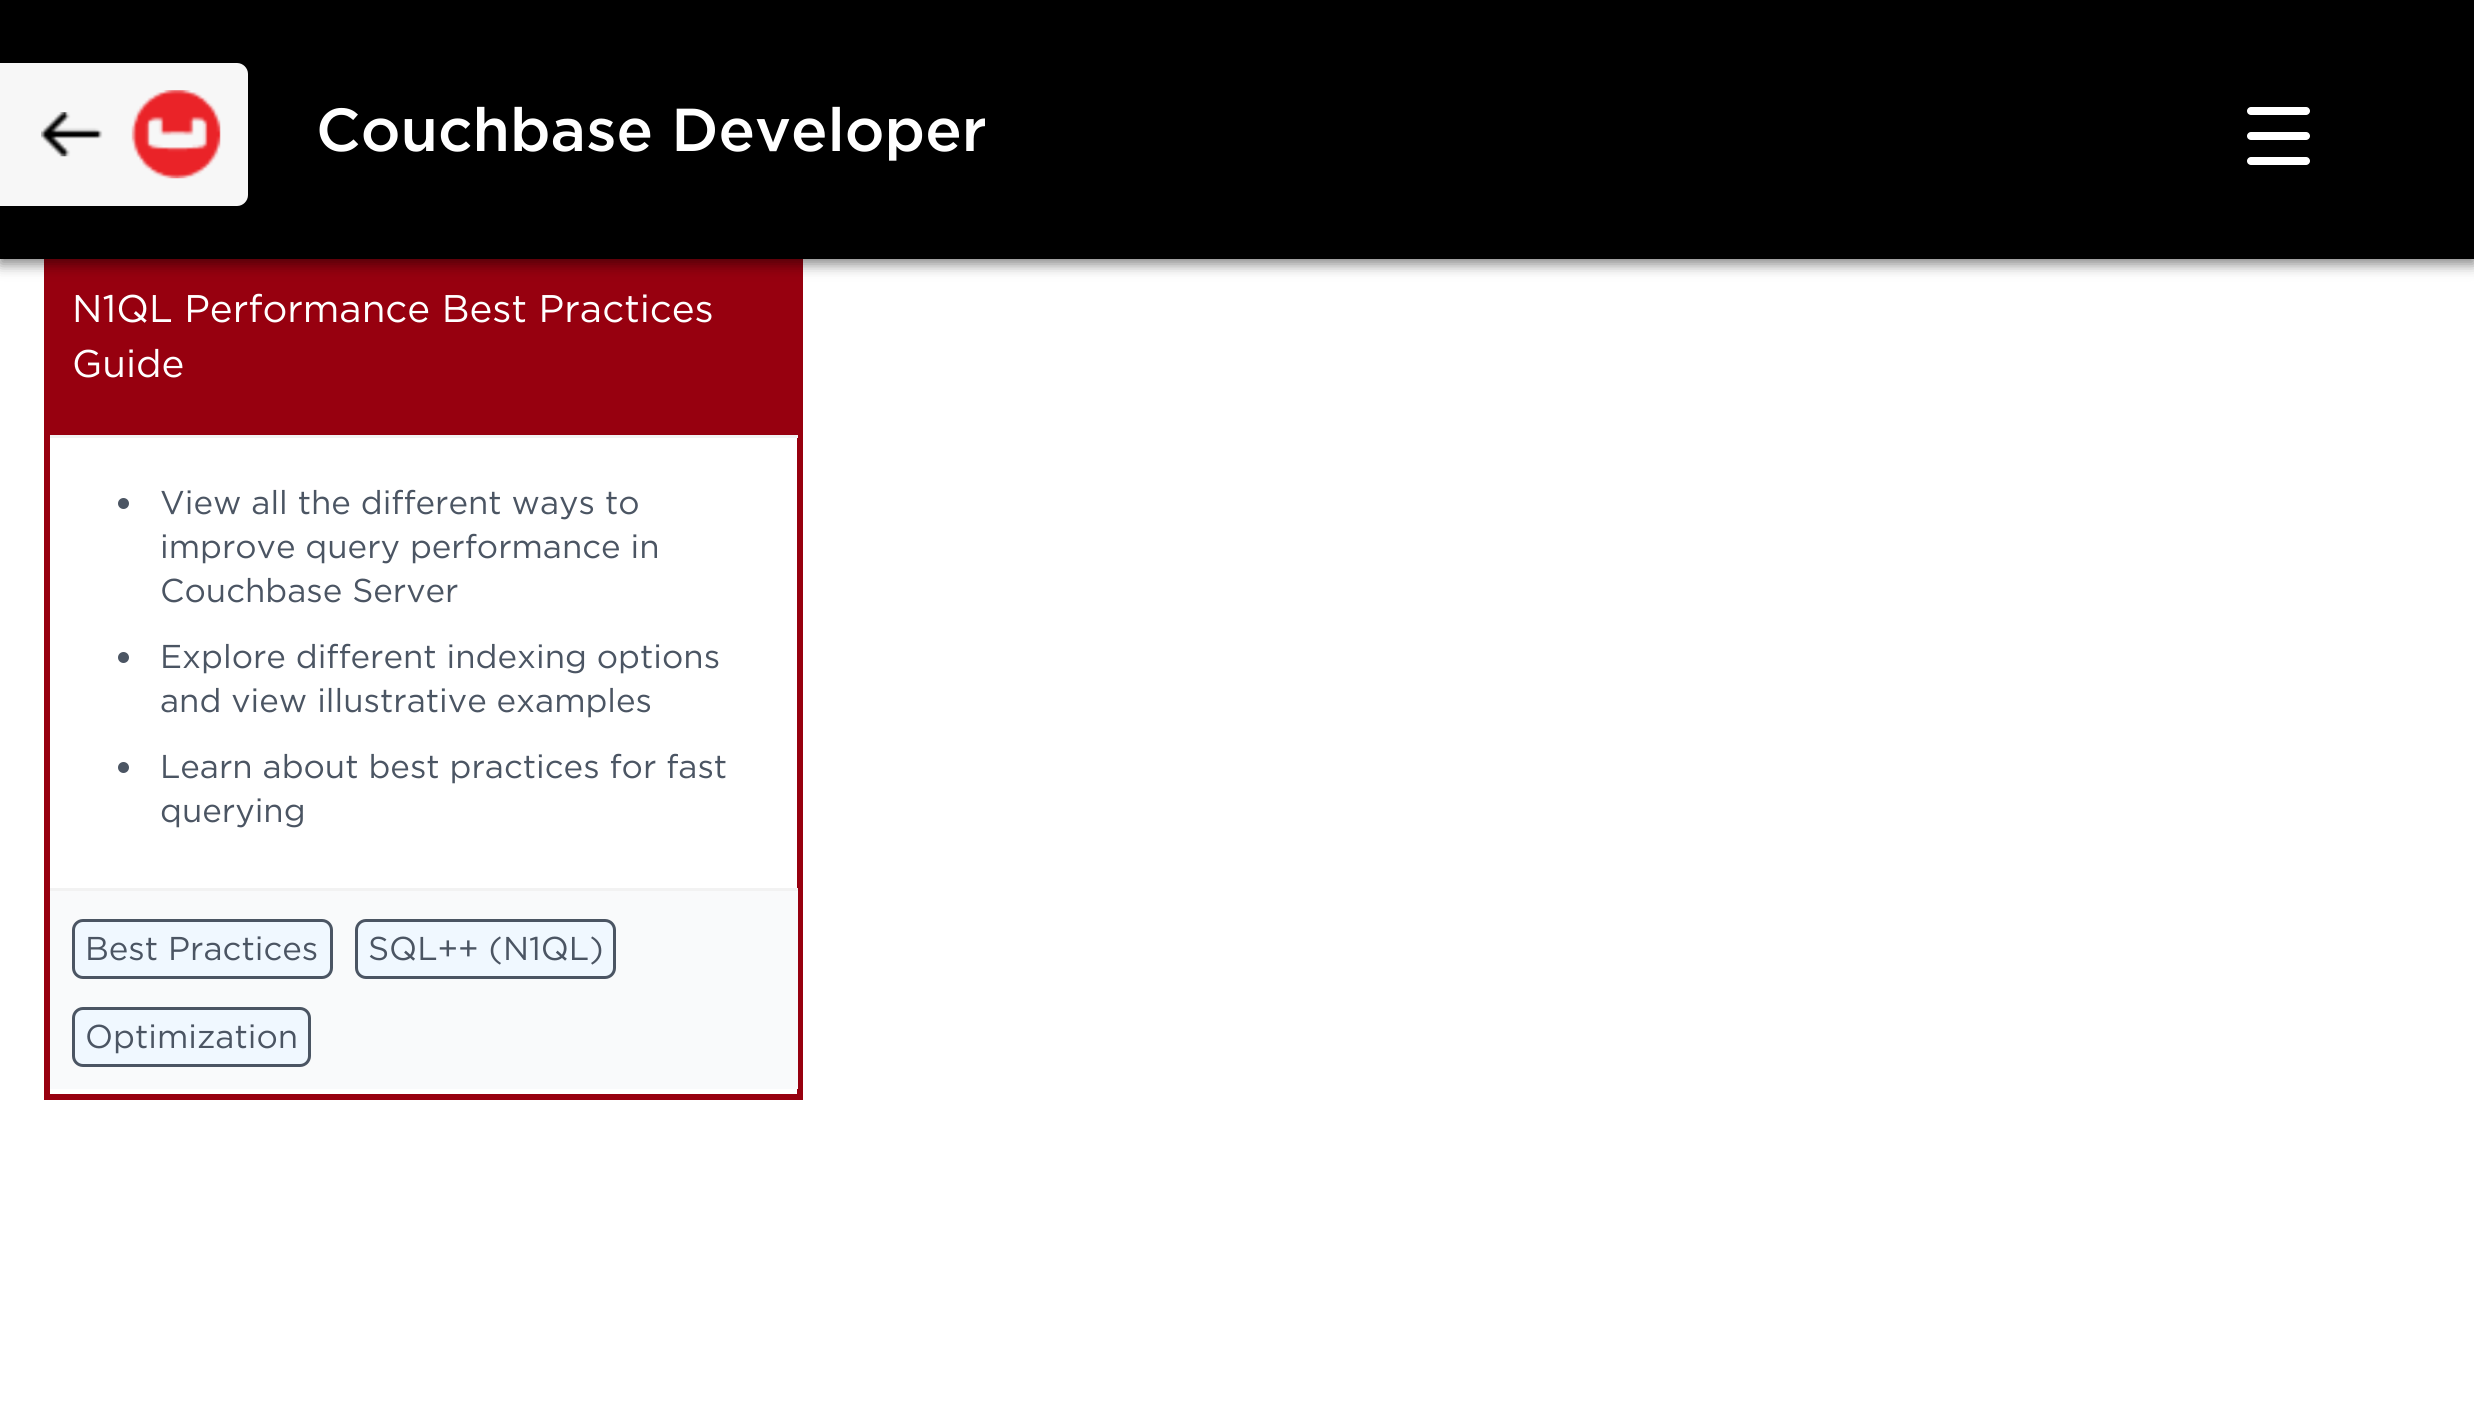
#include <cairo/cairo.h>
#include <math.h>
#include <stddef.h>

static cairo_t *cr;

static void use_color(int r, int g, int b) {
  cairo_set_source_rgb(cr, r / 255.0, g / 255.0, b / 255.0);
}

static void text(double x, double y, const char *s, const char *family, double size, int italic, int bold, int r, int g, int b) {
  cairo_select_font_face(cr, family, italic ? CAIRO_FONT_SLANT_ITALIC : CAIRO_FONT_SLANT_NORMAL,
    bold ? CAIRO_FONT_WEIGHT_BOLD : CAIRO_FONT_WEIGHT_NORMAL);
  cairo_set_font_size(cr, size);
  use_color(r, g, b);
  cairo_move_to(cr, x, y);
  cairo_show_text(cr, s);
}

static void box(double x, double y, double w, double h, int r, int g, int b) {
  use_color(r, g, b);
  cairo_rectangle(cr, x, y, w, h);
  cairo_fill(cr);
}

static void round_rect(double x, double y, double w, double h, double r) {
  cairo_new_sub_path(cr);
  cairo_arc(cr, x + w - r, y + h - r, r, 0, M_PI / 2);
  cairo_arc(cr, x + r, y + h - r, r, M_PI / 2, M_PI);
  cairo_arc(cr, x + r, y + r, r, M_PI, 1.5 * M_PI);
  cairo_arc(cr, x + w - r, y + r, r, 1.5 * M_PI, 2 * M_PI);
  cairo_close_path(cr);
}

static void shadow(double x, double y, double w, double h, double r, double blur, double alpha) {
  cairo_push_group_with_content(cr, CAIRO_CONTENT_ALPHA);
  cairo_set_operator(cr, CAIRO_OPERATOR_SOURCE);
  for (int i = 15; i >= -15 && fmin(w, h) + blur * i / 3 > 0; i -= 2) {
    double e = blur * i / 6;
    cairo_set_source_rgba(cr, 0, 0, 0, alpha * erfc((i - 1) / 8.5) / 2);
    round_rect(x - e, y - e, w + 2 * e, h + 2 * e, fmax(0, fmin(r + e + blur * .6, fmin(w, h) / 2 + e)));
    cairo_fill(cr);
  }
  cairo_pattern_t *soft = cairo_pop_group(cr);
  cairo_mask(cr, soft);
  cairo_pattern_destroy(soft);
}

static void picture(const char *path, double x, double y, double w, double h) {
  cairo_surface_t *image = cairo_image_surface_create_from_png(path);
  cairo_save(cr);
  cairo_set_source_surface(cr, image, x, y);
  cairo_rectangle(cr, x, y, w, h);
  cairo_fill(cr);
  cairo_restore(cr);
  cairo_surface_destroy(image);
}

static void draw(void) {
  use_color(255, 255, 255);
  cairo_paint(cr);
  cairo_rectangle(cr, 47, 256, 753, 841);
  use_color(151, 0, 15);
  cairo_set_line_width(cr, 6);
  cairo_stroke(cr);
  box(50, 259, 747, 176, 151, 0, 15);
  use_color(0, 0, 0);
  shadow(0, 6, 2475, 258, 0, 7, 0.5);
  box(0, 0, 2474, 259, 0, 0, 0);
  use_color(247, 247, 247);
  cairo_new_path(cr);
  cairo_move_to(cr, 0, 63);
  cairo_line_to(cr, 237, 63);
  cairo_curve_to(cr, 243, 63, 248, 68, 248, 74);
  cairo_line_to(cr, 248, 195);
  cairo_curve_to(cr, 248, 201, 243, 206, 237, 206);
  cairo_line_to(cr, 0, 206);
  cairo_close_path(cr);
  cairo_fill(cr);
  picture("img_01.png", 41, 112, 62, 45);
  picture("img_02.png", 131, 90, 90, 89);
  use_color(255, 255, 255);
  round_rect(2247, 107, 63, 8, 4);
  cairo_fill(cr);
  round_rect(2247, 132, 63, 8, 4);
  cairo_fill(cr);
  round_rect(2247, 157, 63, 8, 4);
  cairo_fill(cr);
  box(50, 435, 748, 3, 242, 242, 242);
  use_color(75, 85, 99);
  cairo_arc(cr, 123.5, 503.5, 5.5, 0, 2 * M_PI);
  cairo_fill(cr);
  cairo_arc(cr, 123.5, 657.5, 5.5, 0, 2 * M_PI);
  cairo_fill(cr);
  cairo_arc(cr, 123.5, 767.5, 5.5, 0, 2 * M_PI);
  cairo_fill(cr);
  box(50, 888, 748, 3, 242, 242, 242);
  box(50, 891, 748, 198, 249, 250, 251);
  use_color(240, 248, 255);
  round_rect(73.5, 920.5, 258, 57, 9.5);
  cairo_fill_preserve(cr);
  use_color(75, 85, 99);
  cairo_set_line_width(cr, 3);
  cairo_stroke(cr);
  use_color(240, 248, 255);
  round_rect(356.5, 920.5, 258, 57, 9.5);
  cairo_fill_preserve(cr);
  use_color(75, 85, 99);
  cairo_stroke(cr);
  use_color(240, 248, 255);
  round_rect(73.5, 1008.5, 236, 57, 9.5);
  cairo_fill_preserve(cr);
  use_color(75, 85, 99);
  cairo_stroke(cr);
  text(316, 151, "Couchbase Developer", "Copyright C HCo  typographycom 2 Light", 60.5, 0, 0, 255, 255, 255);
  text(72, 322, "N1QL Performance Best Practices", "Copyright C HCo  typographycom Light", 38.5, 0, 0, 255, 255, 255);
  text(72, 377, "Guide", "Copyright C HCo  typographycom Light", 38.5, 0, 0, 255, 255, 255);
  text(160, 514, "View all the different ways to", "Copyright C HCo  typographycom Light", 33, 0, 0, 75, 85, 99);
  text(160, 558, "improve query performance in", "Copyright C HCo  typographycom Light", 33, 0, 0, 75, 85, 99);
  text(160, 602, "Couchbase Server", "Copyright C HCo  typographycom Light", 33, 0, 0, 75, 85, 99);
  text(160, 668, "Explore different indexing options", "Copyright C HCo  typographycom Light", 33, 0, 0, 75, 85, 99);
  text(160, 712, "and view illustrative examples", "Copyright C HCo  typographycom Light", 33, 0, 0, 75, 85, 99);
  text(160, 778, "Learn about best practices for fast", "Copyright C HCo  typographycom Light", 33, 0, 0, 75, 85, 99);
  text(160, 822, "querying", "Copyright C HCo  typographycom Light", 33, 0, 0, 75, 85, 99);
  text(85, 960, "Best Practices", "Copyright C HCo  typographycom Light", 33, 0, 0, 75, 85, 99);
  text(368, 960, "SQL++ (N1QL)", "Copyright C HCo  typographycom Light", 33, 0, 0, 75, 85, 99);
  text(85, 1048, "Optimization", "Copyright C HCo  typographycom Light", 33, 0, 0, 75, 85, 99);
}

int main(void) {
  cairo_surface_t *surface = cairo_image_surface_create(CAIRO_FORMAT_RGB24, 2474, 1407);
  cr = cairo_create(surface);
  cairo_font_options_t *options = cairo_font_options_create();
  cairo_font_options_set_hint_metrics(options, CAIRO_HINT_METRICS_OFF);
  cairo_font_options_set_hint_style(options, CAIRO_HINT_STYLE_NONE);
  cairo_set_font_options(cr, options);
  cairo_set_miter_limit(cr, 4);
  draw();
  cairo_surface_write_to_png(surface, "out.png");
  cairo_font_options_destroy(options);
  cairo_destroy(cr);
  cairo_surface_destroy(surface);
  return 0;
}
